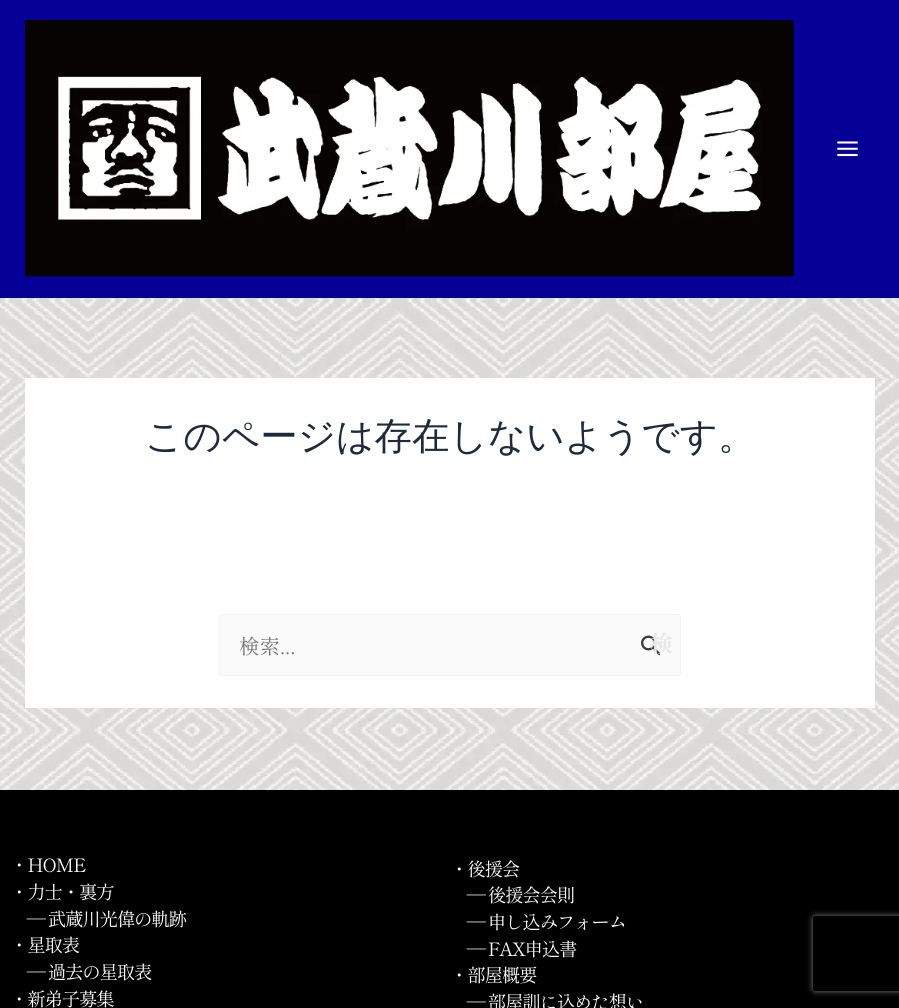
#include <cairo/cairo.h>
#include <math.h>
#include <stddef.h>

static cairo_t *cr;

static void use_color(int r, int g, int b) {
  cairo_set_source_rgb(cr, r / 255.0, g / 255.0, b / 255.0);
}

static void text(double x, double y, const char *s, const char *family, double size, int italic, int bold, int r, int g, int b) {
  cairo_select_font_face(cr, family, italic ? CAIRO_FONT_SLANT_ITALIC : CAIRO_FONT_SLANT_NORMAL,
    bold ? CAIRO_FONT_WEIGHT_BOLD : CAIRO_FONT_WEIGHT_NORMAL);
  cairo_set_font_size(cr, size);
  use_color(r, g, b);
  cairo_move_to(cr, x, y);
  cairo_show_text(cr, s);
}

static void spaced_text(double x, double y, const char *s, double letter, double word) {
  cairo_move_to(cr, x, y);
  while (*s) {
    char ch[5] = {0};
    int n = 0;
    do ch[n++] = *s++; while ((*s & 0xC0) == 0x80);
    cairo_show_text(cr, ch);
    cairo_rel_move_to(cr, letter + word * (*ch == ' '), 0);
  }
}

static void box(double x, double y, double w, double h, int r, int g, int b) {
  use_color(r, g, b);
  cairo_rectangle(cr, x, y, w, h);
  cairo_fill(cr);
}

static void round_rect(double x, double y, double w, double h, double r) {
  cairo_new_sub_path(cr);
  cairo_arc(cr, x + w - r, y + h - r, r, 0, M_PI / 2);
  cairo_arc(cr, x + r, y + h - r, r, M_PI / 2, M_PI);
  cairo_arc(cr, x + r, y + r, r, M_PI, 1.5 * M_PI);
  cairo_arc(cr, x + w - r, y + r, r, 1.5 * M_PI, 2 * M_PI);
  cairo_close_path(cr);
}

static void shadow(double x, double y, double w, double h, double r, double blur, double alpha) {
  cairo_push_group_with_content(cr, CAIRO_CONTENT_ALPHA);
  cairo_set_operator(cr, CAIRO_OPERATOR_SOURCE);
  for (int i = 15; i >= -15 && fmin(w, h) + blur * i / 3 > 0; i -= 2) {
    double e = blur * i / 6;
    cairo_set_source_rgba(cr, 0, 0, 0, alpha * erfc((i - 1) / 8.5) / 2);
    round_rect(x - e, y - e, w + 2 * e, h + 2 * e, fmax(0, fmin(r + e + blur * .6, fmin(w, h) / 2 + e)));
    cairo_fill(cr);
  }
  cairo_pattern_t *soft = cairo_pop_group(cr);
  cairo_mask(cr, soft);
  cairo_pattern_destroy(soft);
}

static void picture(const char *path, double x, double y, double w, double h) {
  cairo_surface_t *image = cairo_image_surface_create_from_png(path);
  cairo_save(cr);
  cairo_set_source_surface(cr, image, x, y);
  cairo_rectangle(cr, x, y, w, h);
  cairo_fill(cr);
  cairo_restore(cr);
  cairo_surface_destroy(image);
}

static void draw(void) {
  use_color(255, 255, 255);
  cairo_paint(cr);
  picture("img_01.png", 0, 298, 899, 492);
  box(0, 0, 899, 298, 6, 0, 151);
  picture("img_02.png", 25, 20, 769, 257);
  picture("img_03.png", 837, 141, 21, 16);
  box(25, 378, 850, 330, 255, 255, 255);
  use_color(250, 250, 250);
  round_rect(219.5, 614.5, 461, 61, 2);
  cairo_fill_preserve(cr);
  use_color(242, 245, 247);
  cairo_set_line_width(cr, 1);
  cairo_stroke(cr);
  picture("img_04.png", 641, 635, 19, 21);
  box(0, 790, 899, 218, 0, 0, 0);
  cairo_save(cr);
  cairo_set_fill_rule(cr, CAIRO_FILL_RULE_EVEN_ODD);
  cairo_new_path(cr);
  cairo_move_to(cr, 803, 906);
  cairo_line_to(cr, 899, 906);
  cairo_line_to(cr, 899, 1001);
  cairo_line_to(cr, 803, 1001);
  cairo_close_path(cr);
  cairo_move_to(cr, 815.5, 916);
  cairo_line_to(cr, 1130.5, 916);
  cairo_curve_to(cr, 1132, 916, 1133, 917, 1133, 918.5);
  cairo_line_to(cr, 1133, 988.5);
  cairo_curve_to(cr, 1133, 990, 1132, 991, 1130.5, 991);
  cairo_line_to(cr, 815.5, 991);
  cairo_curve_to(cr, 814, 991, 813, 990, 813, 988.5);
  cairo_line_to(cr, 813, 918.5);
  cairo_curve_to(cr, 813, 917, 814, 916, 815.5, 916);
  cairo_close_path(cr);
  cairo_clip(cr);
  use_color(128, 128, 128);
  shadow(813, 916, 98, 75, 2.5, 3, 1);
  cairo_restore(cr);
  text(145, 449, "このページは存在しないようです。", "WenQuanYi Zen Hei Medium", 37.5, 0, 0, 30, 41, 59);
  text(239, 654, "検索...", "Shippori Mincho", 20.5, 0, 0, 117, 117, 117);
  text(650, 652, "検", "Shippori Mincho B1", 23, 0, 1, 231, 231, 231);
  cairo_select_font_face(cr, "Shippori Mincho", CAIRO_FONT_SLANT_NORMAL, CAIRO_FONT_WEIGHT_NORMAL);
  cairo_set_font_size(cr, 18.5);
  use_color(255, 255, 255);
  spaced_text(10, 872, "・HOME", -1.25, 0);
  spaced_text(10, 899, "・力士・裏方", -1.25, 0);
  spaced_text(27, 926, "― 武蔵川光偉の軌跡", -1.25, 0);
  spaced_text(10, 952, "・星取表", -1.25, 0);
  spaced_text(27, 979, "― 過去の星取表", -1.25, 0);
  spaced_text(10, 1006, "・新弟子募集", -1.25, 0);
  spaced_text(450, 876, "・後援会", -1.25, 0);
  spaced_text(467, 902, "― 後援会会則", -1.25, 0);
  spaced_text(467, 929, "― 申し込みフォーム", -1.25, 0);
  spaced_text(467, 956, "― FAX申込書", -1.25, 0);
  spaced_text(450, 982, "・部屋概要", -1.25, 0);
  spaced_text(467, 1009, "― 部屋訓に込めた想い", -1.25, 0);
}

int main(void) {
  cairo_surface_t *surface = cairo_image_surface_create(CAIRO_FORMAT_RGB24, 899, 1008);
  cr = cairo_create(surface);
  cairo_font_options_t *options = cairo_font_options_create();
  cairo_font_options_set_hint_metrics(options, CAIRO_HINT_METRICS_OFF);
  cairo_font_options_set_hint_style(options, CAIRO_HINT_STYLE_NONE);
  cairo_set_font_options(cr, options);
  cairo_set_miter_limit(cr, 4);
  draw();
  cairo_surface_write_to_png(surface, "out.png");
  cairo_font_options_destroy(options);
  cairo_destroy(cr);
  cairo_surface_destroy(surface);
  return 0;
}
